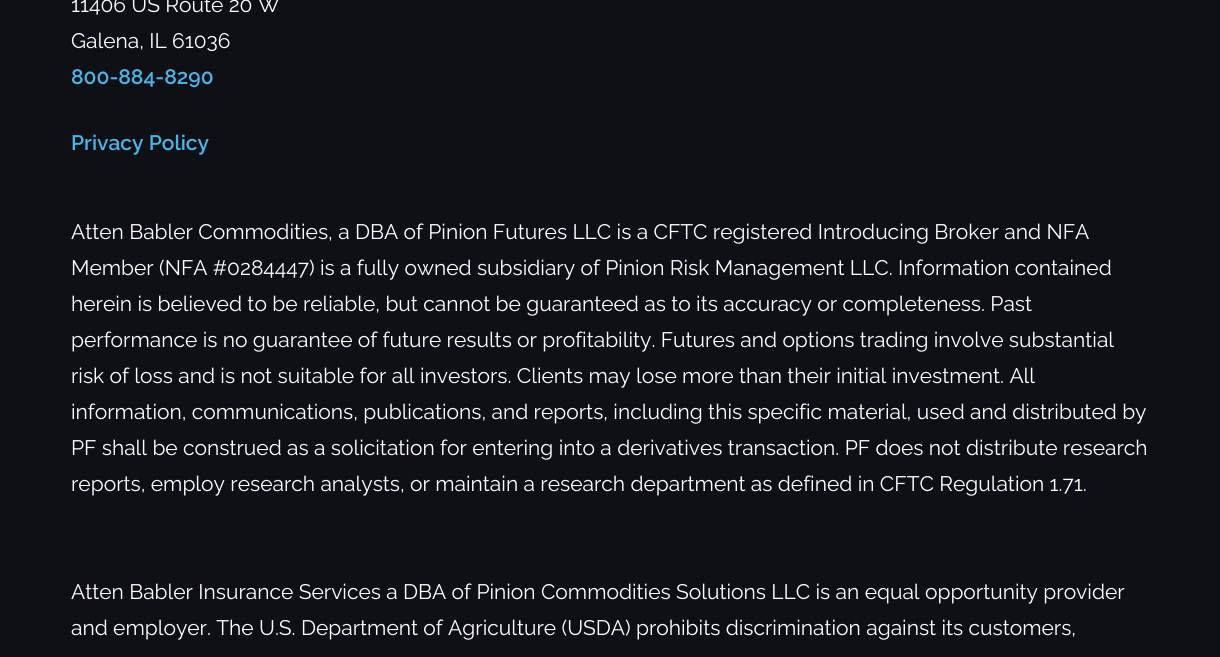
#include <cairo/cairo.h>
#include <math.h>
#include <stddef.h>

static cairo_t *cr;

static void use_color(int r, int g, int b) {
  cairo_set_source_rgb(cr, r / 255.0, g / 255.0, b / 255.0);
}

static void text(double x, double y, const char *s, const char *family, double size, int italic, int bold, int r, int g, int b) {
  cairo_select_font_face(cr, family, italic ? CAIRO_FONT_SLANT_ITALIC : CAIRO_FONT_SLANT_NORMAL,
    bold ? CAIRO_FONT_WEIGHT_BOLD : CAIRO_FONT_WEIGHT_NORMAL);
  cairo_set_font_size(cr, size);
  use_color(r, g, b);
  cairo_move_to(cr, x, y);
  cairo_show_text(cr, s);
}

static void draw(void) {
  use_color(14, 16, 21);
  cairo_paint(cr);
  text(71, 12, "11406 US Route 20 W", "Raleway", 21, 0, 0, 255, 255, 255);
  text(71, 48, "Galena, IL 61036", "Raleway", 21, 0, 0, 255, 255, 255);
  text(71, 84, "800-884-8290", "Raleway SemiBold", 21, 0, 0, 73, 181, 228);
  text(71, 150, "Privacy Policy", "Raleway SemiBold", 21, 0, 0, 73, 181, 228);
  text(71, 239, "Atten Babler Commodities, a DBA of Pinion Futures LLC is a CFTC registered Introducing Broker and NFA", "Raleway", 21, 0, 0, 255, 255, 255);
  text(71, 275, "Member (NFA #0284447) is a fully owned subsidiary of Pinion Risk Management LLC. Information contained", "Raleway", 21, 0, 0, 255, 255, 255);
  text(71, 311, "herein is believed to be reliable, but cannot be guaranteed as to its accuracy or completeness. Past", "Raleway", 21, 0, 0, 255, 255, 255);
  text(71, 347, "performance is no guarantee of future results or profitability. Futures and options trading involve substantial", "Raleway", 21, 0, 0, 255, 255, 255);
  text(71, 383, "risk of loss and is not suitable for all investors. Clients may lose more than their initial investment. All", "Raleway", 21, 0, 0, 255, 255, 255);
  text(71, 419, "information, communications, publications, and reports, including this specific material, used and distributed by", "Raleway", 21, 0, 0, 255, 255, 255);
  text(71, 455, "PF shall be construed as a solicitation for entering into a derivatives transaction. PF does not distribute research", "Raleway", 21, 0, 0, 255, 255, 255);
  text(71, 491, "reports, employ research analysts, or maintain a research department as defined in CFTC Regulation 1.71.", "Raleway", 21, 0, 0, 255, 255, 255);
  text(71, 599, "Atten Babler Insurance Services a DBA of Pinion Commodities Solutions LLC is an equal opportunity provider", "Raleway", 21, 0, 0, 255, 255, 255);
  text(71, 635, "and employer. The U.S. Department of Agriculture (USDA) prohibits discrimination against its customers,", "Raleway", 21, 0, 0, 255, 255, 255);
}

int main(void) {
  cairo_surface_t *surface = cairo_image_surface_create(CAIRO_FORMAT_RGB24, 1220, 657);
  cr = cairo_create(surface);
  cairo_font_options_t *options = cairo_font_options_create();
  cairo_font_options_set_hint_metrics(options, CAIRO_HINT_METRICS_OFF);
  cairo_font_options_set_hint_style(options, CAIRO_HINT_STYLE_NONE);
  cairo_set_font_options(cr, options);
  cairo_set_miter_limit(cr, 4);
  draw();
  cairo_surface_write_to_png(surface, "out.png");
  cairo_font_options_destroy(options);
  cairo_destroy(cr);
  cairo_surface_destroy(surface);
  return 0;
}
